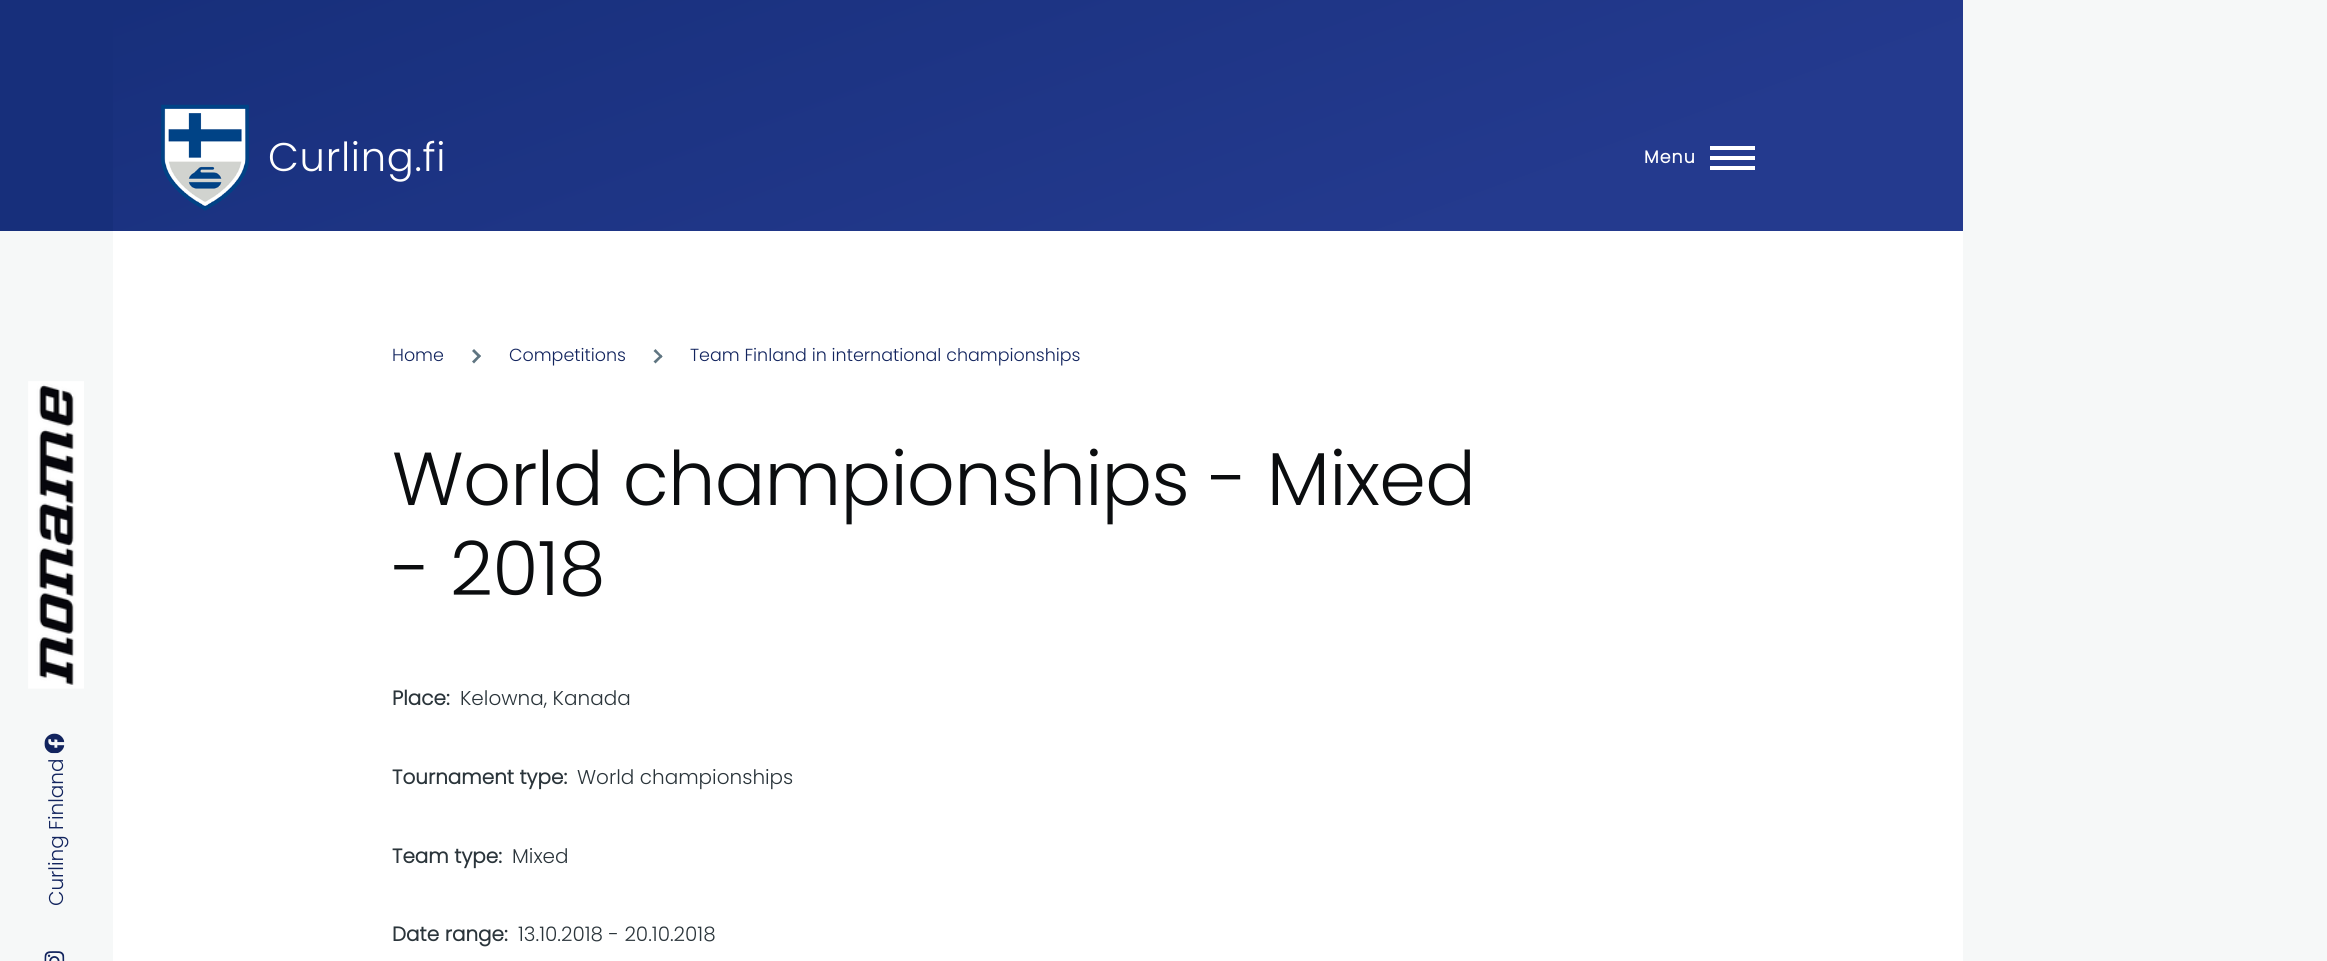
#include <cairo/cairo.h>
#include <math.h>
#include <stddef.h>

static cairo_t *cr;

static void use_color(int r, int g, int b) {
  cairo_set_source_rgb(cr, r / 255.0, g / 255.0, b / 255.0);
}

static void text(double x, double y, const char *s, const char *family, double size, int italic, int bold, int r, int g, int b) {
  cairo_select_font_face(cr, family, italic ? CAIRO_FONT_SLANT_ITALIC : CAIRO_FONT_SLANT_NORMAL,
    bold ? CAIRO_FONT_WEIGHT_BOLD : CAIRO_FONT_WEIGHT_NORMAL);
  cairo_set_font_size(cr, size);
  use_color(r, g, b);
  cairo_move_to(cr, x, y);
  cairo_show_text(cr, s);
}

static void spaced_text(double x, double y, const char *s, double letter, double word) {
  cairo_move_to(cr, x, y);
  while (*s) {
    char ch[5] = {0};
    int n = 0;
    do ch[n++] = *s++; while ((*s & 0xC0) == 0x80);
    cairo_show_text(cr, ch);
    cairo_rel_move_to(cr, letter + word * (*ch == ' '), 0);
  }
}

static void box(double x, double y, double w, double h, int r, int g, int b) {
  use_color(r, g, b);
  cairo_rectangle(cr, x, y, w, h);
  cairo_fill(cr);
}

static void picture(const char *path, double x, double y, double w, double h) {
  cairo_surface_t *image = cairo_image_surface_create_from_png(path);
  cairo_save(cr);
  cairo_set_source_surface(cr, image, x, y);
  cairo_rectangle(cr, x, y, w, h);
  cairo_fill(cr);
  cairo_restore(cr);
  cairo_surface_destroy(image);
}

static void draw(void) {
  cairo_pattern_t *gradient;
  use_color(246, 248, 248);
  cairo_paint(cr);
  box(113, 231, 1850, 730, 255, 255, 255);
  box(0, 0, 113, 231, 23, 47, 123);
  gradient = cairo_pattern_create_linear(892, -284, 1183, 515);
  cairo_pattern_add_color_stop_rgba(gradient, 0, 0.09, 0.184, 0.482, 1);
  cairo_pattern_add_color_stop_rgba(gradient, 0.79, 0.141, 0.227, 0.557, 1);
  cairo_set_source(cr, gradient);
  cairo_pattern_destroy(gradient);
  cairo_rectangle(cr, 113, 0, 1850, 231);
  cairo_fill(cr);
  picture("img_01.png", 161, 104, 88, 107);
  box(1710, 156, 45, 4, 255, 255, 255);
  box(1710, 146, 45, 4, 255, 255, 255);
  box(1710, 166, 45, 4, 255, 255, 255);
  picture("img_02.png", 28, 381, 56, 308);
  picture("img_03.png", 44, 733, 21, 21);
  picture("img_04.png", 44, 951, 21, 10);
  use_color(95, 117, 129);
  cairo_new_path(cr);
  cairo_move_to(cr, 474, 349);
  cairo_line_to(cr, 481, 356);
  cairo_line_to(cr, 479, 358);
  cairo_line_to(cr, 472, 351);
  cairo_close_path(cr);
  cairo_fill(cr);
  cairo_new_path(cr);
  cairo_move_to(cr, 479, 354.5);
  cairo_line_to(cr, 481, 356);
  cairo_line_to(cr, 474, 363.5);
  cairo_line_to(cr, 472, 361.5);
  cairo_close_path(cr);
  cairo_fill(cr);
  cairo_new_path(cr);
  cairo_move_to(cr, 655.5, 349);
  cairo_line_to(cr, 662.5, 356.5);
  cairo_line_to(cr, 661, 358);
  cairo_line_to(cr, 653.5, 351);
  cairo_close_path(cr);
  cairo_fill(cr);
  cairo_new_path(cr);
  cairo_move_to(cr, 661, 354.5);
  cairo_line_to(cr, 662.5, 356.5);
  cairo_line_to(cr, 655.5, 363.5);
  cairo_line_to(cr, 653.5, 361.5);
  cairo_close_path(cr);
  cairo_fill(cr);
  cairo_select_font_face(cr, "Poppins Light", CAIRO_FONT_SLANT_NORMAL, CAIRO_FONT_WEIGHT_NORMAL);
  cairo_set_font_size(cr, 40);
  use_color(255, 255, 255);
  spaced_text(268, 171, "Curling.fi", 0.75, 0);
  cairo_select_font_face(cr, "Poppins", CAIRO_FONT_SLANT_NORMAL, CAIRO_FONT_WEIGHT_BOLD);
  cairo_set_font_size(cr, 17.5);
  spaced_text(1644, 163, "Menu", 1, 0);
  cairo_save(cr);
  cairo_translate(cr, 63, 906);
  cairo_rotate(cr, -90 * M_PI / 180);
  text(0, 0, "Curling Finland", "Poppins Light", 20, 0, 0, 18, 36, 94);
  cairo_restore(cr);
  text(392, 361, "Home", "Poppins Light", 17.5, 0, 0, 18, 36, 94);
  text(509, 361, "Competitions", "Poppins Light", 17.5, 0, 0, 18, 36, 94);
  text(690, 361, "Team Finland in international championships", "Poppins Light", 17.5, 0, 0, 18, 36, 94);
  cairo_set_font_size(cr, 75);
  use_color(11, 13, 15);
  spaced_text(392, 505, "World championships - Mixed", -0.75, 0);
  spaced_text(392, 595, "- 2018", -0.75, 0);
  text(392, 705, "Place:", "Poppins", 20, 0, 1, 43, 53, 59);
  text(460, 705, "Kelowna, Kanada", "Poppins Light", 20, 0, 0, 43, 53, 59);
  text(392, 784, "Tournament type:", "Poppins", 20, 0, 1, 43, 53, 59);
  text(577, 784, "World championships", "Poppins Light", 20, 0, 0, 43, 53, 59);
  text(392, 863, "Team type:", "Poppins", 20, 0, 1, 43, 53, 59);
  text(512, 863, "Mixed", "Poppins Light", 20, 0, 0, 43, 53, 59);
  text(392, 941, "Date range:", "Poppins", 20, 0, 1, 43, 53, 59);
  text(518, 941, "13.10.2018 - 20.10.2018", "Poppins Light", 20, 0, 0, 43, 53, 59);
}

int main(void) {
  cairo_surface_t *surface = cairo_image_surface_create(CAIRO_FORMAT_RGB24, 2327, 961);
  cr = cairo_create(surface);
  cairo_font_options_t *options = cairo_font_options_create();
  cairo_font_options_set_hint_metrics(options, CAIRO_HINT_METRICS_OFF);
  cairo_font_options_set_hint_style(options, CAIRO_HINT_STYLE_NONE);
  cairo_set_font_options(cr, options);
  cairo_set_miter_limit(cr, 4);
  draw();
  cairo_surface_write_to_png(surface, "out.png");
  cairo_font_options_destroy(options);
  cairo_destroy(cr);
  cairo_surface_destroy(surface);
  return 0;
}
